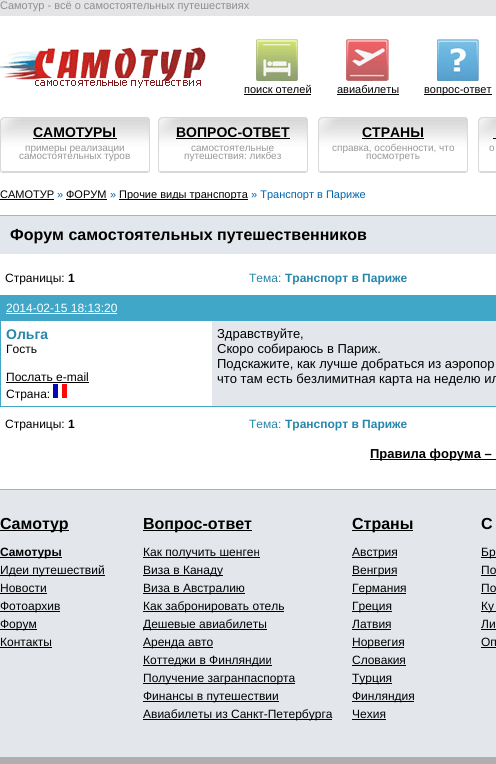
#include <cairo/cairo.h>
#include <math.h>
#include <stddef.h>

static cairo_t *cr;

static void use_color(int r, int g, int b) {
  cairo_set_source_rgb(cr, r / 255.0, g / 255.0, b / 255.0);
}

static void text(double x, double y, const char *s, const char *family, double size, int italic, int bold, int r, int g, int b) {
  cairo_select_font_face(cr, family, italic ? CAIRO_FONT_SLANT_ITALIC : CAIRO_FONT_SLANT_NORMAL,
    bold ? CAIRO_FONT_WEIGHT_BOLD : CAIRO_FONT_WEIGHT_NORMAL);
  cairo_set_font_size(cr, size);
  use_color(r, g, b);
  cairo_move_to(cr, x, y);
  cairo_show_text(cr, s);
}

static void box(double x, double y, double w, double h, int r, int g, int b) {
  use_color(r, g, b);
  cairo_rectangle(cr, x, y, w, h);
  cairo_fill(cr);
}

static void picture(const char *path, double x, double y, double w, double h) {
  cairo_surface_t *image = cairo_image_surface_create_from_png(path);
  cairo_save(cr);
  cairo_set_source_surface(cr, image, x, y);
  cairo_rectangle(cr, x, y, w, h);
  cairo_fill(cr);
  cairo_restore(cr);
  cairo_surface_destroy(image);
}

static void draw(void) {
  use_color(255, 255, 255);
  cairo_paint(cr);
  box(0, 0, 496, 16, 228, 228, 230);
  picture("img_01.png", 0, 47, 206, 41);
  picture("img_02.png", 256, 39, 42, 42);
  box(244, 94, 67, 1, 0, 0, 0);
  picture("img_03.png", 346, 39, 43, 42);
  box(337, 94, 62, 1, 0, 0, 0);
  picture("img_04.png", 437, 39, 42, 42);
  box(424, 94, 68, 1, 0, 0, 0);
  picture("img_05.png", 0, 117, 150, 56);
  box(33, 138, 84, 1, 0, 0, 0);
  picture("img_05.png", 158, 117, 150, 56);
  box(176, 138, 114, 1, 0, 0, 0);
  picture("img_05.png", 318, 117, 150, 56);
  box(362, 138, 62, 1, 0, 0, 0);
  picture("img_06.png", 478, 117, 18, 56);
  box(493, 138, 3, 1, 0, 0, 0);
  box(0, 199, 54, 1, 0, 0, 0);
  box(66, 199, 41, 1, 0, 0, 0);
  box(119, 199, 129, 1, 0, 0, 0);
  box(0, 216, 496, 38, 226, 231, 237);
  box(0, 215, 496, 1, 175, 176, 178);
  box(0, 295, 496, 112, 64, 167, 200);
  box(6, 313, 111, 1, 255, 255, 255);
  box(1, 321, 211, 85, 255, 255, 255);
  box(6, 382, 83, 1, 0, 0, 0);
  picture("img_07.png", 53, 384, 14, 14);
  box(212, 321, 284, 85, 227, 231, 236);
  box(370, 459, 126, 1, 0, 0, 0);
  box(0, 490, 496, 267, 227, 231, 236);
  box(0, 489, 496, 1, 175, 175, 175);
  box(0, 530, 69, 1, 0, 0, 0);
  box(0, 557, 62, 1, 0, 0, 0);
  box(0, 575, 105, 1, 0, 0, 0);
  box(0, 593, 47, 1, 0, 0, 0);
  box(0, 611, 60, 1, 0, 0, 0);
  box(0, 629, 37, 1, 0, 0, 0);
  box(0, 647, 52, 1, 0, 0, 0);
  box(143, 530, 109, 1, 0, 0, 0);
  box(143, 557, 117, 1, 0, 0, 0);
  box(143, 575, 80, 1, 0, 0, 0);
  box(143, 593, 102, 1, 0, 0, 0);
  box(143, 611, 141, 1, 0, 0, 0);
  box(143, 629, 124, 1, 0, 0, 0);
  box(143, 647, 70, 1, 0, 0, 0);
  box(143, 665, 129, 1, 0, 0, 0);
  box(143, 683, 152, 1, 0, 0, 0);
  box(143, 701, 136, 1, 0, 0, 0);
  box(143, 719, 189, 1, 0, 0, 0);
  box(352, 530, 61, 1, 0, 0, 0);
  box(352, 557, 45, 1, 0, 0, 0);
  box(352, 575, 45, 1, 0, 0, 0);
  box(352, 593, 54, 1, 0, 0, 0);
  box(352, 611, 40, 1, 0, 0, 0);
  box(352, 629, 39, 1, 0, 0, 0);
  box(352, 647, 52, 1, 0, 0, 0);
  box(352, 665, 54, 1, 0, 0, 0);
  box(352, 683, 40, 1, 0, 0, 0);
  box(352, 701, 62, 1, 0, 0, 0);
  box(352, 719, 34, 1, 0, 0, 0);
  box(481, 557, 15, 1, 0, 0, 0);
  box(481, 575, 15, 1, 0, 0, 0);
  box(481, 593, 15, 1, 0, 0, 0);
  box(481, 611, 15, 1, 0, 0, 0);
  box(481, 629, 15, 1, 0, 0, 0);
  box(481, 647, 15, 1, 0, 0, 0);
  box(0, 757, 496, 7, 175, 175, 175);
  text(0, 9, "Самотур - всё о самостоятельных путешествиях", "Liberation Sans", 11, 0, 0, 143, 143, 145);
  text(244, 93, "поиск отелей", "Liberation Sans", 11, 0, 0, 0, 0, 0);
  text(337, 93, "авиабилеты", "Liberation Sans", 11, 0, 0, 0, 0, 0);
  text(424, 93, "вопрос-ответ", "Liberation Sans", 11, 0, 0, 0, 0, 0);
  text(33, 137, "САМОТУРЫ", "Liberation Sans", 14, 0, 1, 0, 0, 0);
  text(25, 151, "примеры реализации", "Liberation Sans", 10, 0, 0, 152, 152, 152);
  text(19, 159, "самостоятельных туров", "Liberation Sans", 10, 0, 0, 152, 152, 152);
  text(176, 137, "ВОПРОС-ОТВЕТ", "Liberation Sans", 14, 0, 1, 0, 0, 0);
  text(191, 151, "самостоятельные", "Liberation Sans", 10, 0, 0, 152, 152, 152);
  text(184, 159, "путешествия: ликбез", "Liberation Sans", 10, 0, 0, 152, 152, 152);
  text(362, 137, "СТРАНЫ", "Liberation Sans", 14, 0, 1, 0, 0, 0);
  text(332, 151, "справка, особенности, что", "Liberation Sans", 10, 0, 0, 152, 152, 152);
  text(366, 159, "посмотреть", "Liberation Sans", 10, 0, 0, 152, 152, 152);
  text(489, 151, "о", "Liberation Sans", 10, 0, 0, 152, 152, 152);
  text(0, 198, "САМОТУР", "Liberation Sans", 11, 0, 0, 0, 0, 0);
  text(57, 198, "»", "Liberation Sans", 11, 0, 0, 0, 100, 170);
  text(66, 198, "ФОРУМ", "Liberation Sans", 11, 0, 0, 0, 0, 0);
  text(110, 198, "»", "Liberation Sans", 11, 0, 0, 0, 100, 170);
  cairo_save(cr);
  cairo_rectangle(cr, 0, 188, 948, 12);
  cairo_clip(cr);
  text(119, 198, "Прочие виды транспорта", "Liberation Sans", 11, 0, 0, 0, 0, 0);
  text(251, 198, "» Транспорт в Париже", "Liberation Sans", 11, 0, 0, 0, 100, 170);
  cairo_restore(cr);
  text(10, 240, "Форум самостоятельных путешественников", "Liberation Sans", 16, 0, 1, 0, 0, 0);
  text(5, 282, "Страницы:", "Liberation Sans", 12, 0, 0, 0, 0, 0);
  text(68, 282, "1", "Liberation Sans", 12, 0, 1, 0, 0, 0);
  text(249, 282, "Тема:", "Liberation Sans", 12, 0, 0, 38, 134, 171);
  text(285, 282, "Транспорт в Париже", "Liberation Sans", 12, 0, 1, 38, 134, 171);
  text(6, 312, "2014-02-15 18:13:20", "Liberation Sans", 12, 0, 0, 255, 255, 255);
  text(6, 339, "Ольга", "Liberation Sans", 14, 0, 1, 38, 134, 171);
  text(6, 353, "Гость", "Liberation Sans", 12, 0, 0, 0, 0, 0);
  text(6, 381, "Послать e-mail", "Liberation Sans", 12, 0, 0, 0, 0, 0);
  text(6, 398, "Страна:", "Liberation Sans", 12, 0, 0, 0, 0, 0);
  text(217, 338, "Здравствуйте,", "Liberation Sans", 13, 0, 0, 0, 0, 0);
  text(217, 353, "Скоро собираюсь в Париж.", "Liberation Sans", 13, 0, 0, 0, 0, 0);
  text(217, 368, "Подскажите, как лучше добраться из аэропор", "Liberation Sans", 13, 0, 0, 0, 0, 0);
  text(217, 383, "что там есть безлимитная карта на неделю ил", "Liberation Sans", 13, 0, 0, 0, 0, 0);
  text(5, 428, "Страницы:", "Liberation Sans", 12, 0, 0, 0, 0, 0);
  text(68, 428, "1", "Liberation Sans", 12, 0, 1, 0, 0, 0);
  text(249, 428, "Тема:", "Liberation Sans", 12, 0, 0, 38, 134, 171);
  text(285, 428, "Транспорт в Париже", "Liberation Sans", 12, 0, 1, 38, 134, 171);
  text(370, 458, "Правила форума – ч", "Liberation Sans", 13, 0, 1, 0, 0, 0);
  text(0, 529, "Самотур", "Liberation Sans", 16, 0, 1, 0, 0, 0);
  text(0, 556, "Самотуры", "Liberation Sans", 12, 0, 1, 0, 0, 0);
  text(0, 574, "Идеи путешествий", "Liberation Sans", 12, 0, 0, 0, 0, 0);
  text(0, 592, "Новости", "Liberation Sans", 12, 0, 0, 0, 0, 0);
  text(0, 610, "Фотоархив", "Liberation Sans", 12, 0, 0, 0, 0, 0);
  text(0, 628, "Форум", "Liberation Sans", 12, 0, 0, 0, 0, 0);
  text(0, 646, "Контакты", "Liberation Sans", 12, 0, 0, 0, 0, 0);
  text(143, 529, "Вопрос-ответ", "Liberation Sans", 16, 0, 1, 0, 0, 0);
  text(143, 556, "Как получить шенген", "Liberation Sans", 12, 0, 0, 0, 0, 0);
  text(143, 574, "Виза в Канаду", "Liberation Sans", 12, 0, 0, 0, 0, 0);
  text(143, 592, "Виза в Австралию", "Liberation Sans", 12, 0, 0, 0, 0, 0);
  text(143, 610, "Как забронировать отель", "Liberation Sans", 12, 0, 0, 0, 0, 0);
  text(143, 628, "Дешевые авиабилеты", "Liberation Sans", 12, 0, 0, 0, 0, 0);
  text(143, 646, "Аренда авто", "Liberation Sans", 12, 0, 0, 0, 0, 0);
  text(143, 664, "Коттеджи в Финляндии", "Liberation Sans", 12, 0, 0, 0, 0, 0);
  text(143, 682, "Получение загранпаспорта", "Liberation Sans", 12, 0, 0, 0, 0, 0);
  text(143, 700, "Финансы в путешествии", "Liberation Sans", 12, 0, 0, 0, 0, 0);
  text(143, 718, "Авиабилеты из Санкт-Петербурга", "Liberation Sans", 12, 0, 0, 0, 0, 0);
  text(352, 529, "Страны", "Liberation Sans", 16, 0, 1, 0, 0, 0);
  text(352, 556, "Австрия", "Liberation Sans", 12, 0, 0, 0, 0, 0);
  text(352, 574, "Венгрия", "Liberation Sans", 12, 0, 0, 0, 0, 0);
  text(352, 592, "Германия", "Liberation Sans", 12, 0, 0, 0, 0, 0);
  text(352, 610, "Греция", "Liberation Sans", 12, 0, 0, 0, 0, 0);
  text(352, 628, "Латвия", "Liberation Sans", 12, 0, 0, 0, 0, 0);
  text(352, 646, "Норвегия", "Liberation Sans", 12, 0, 0, 0, 0, 0);
  text(352, 664, "Словакия", "Liberation Sans", 12, 0, 0, 0, 0, 0);
  text(352, 682, "Турция", "Liberation Sans", 12, 0, 0, 0, 0, 0);
  text(352, 700, "Финляндия", "Liberation Sans", 12, 0, 0, 0, 0, 0);
  text(352, 718, "Чехия", "Liberation Sans", 12, 0, 0, 0, 0, 0);
  text(481, 529, "С", "Liberation Sans", 16, 0, 1, 0, 0, 0);
  text(481, 556, "Бр", "Liberation Sans", 12, 0, 0, 0, 0, 0);
  text(481, 574, "По", "Liberation Sans", 12, 0, 0, 0, 0, 0);
  text(481, 592, "По", "Liberation Sans", 12, 0, 0, 0, 0, 0);
  text(481, 610, "Ку", "Liberation Sans", 12, 0, 0, 0, 0, 0);
  text(481, 628, "Ли", "Liberation Sans", 12, 0, 0, 0, 0, 0);
  text(481, 646, "Оп", "Liberation Sans", 12, 0, 0, 0, 0, 0);
}

int main(void) {
  cairo_surface_t *surface = cairo_image_surface_create(CAIRO_FORMAT_RGB24, 496, 764);
  cr = cairo_create(surface);
  cairo_font_options_t *options = cairo_font_options_create();
  cairo_font_options_set_hint_metrics(options, CAIRO_HINT_METRICS_OFF);
  cairo_font_options_set_hint_style(options, CAIRO_HINT_STYLE_NONE);
  cairo_set_font_options(cr, options);
  cairo_set_miter_limit(cr, 4);
  draw();
  cairo_surface_write_to_png(surface, "out.png");
  cairo_font_options_destroy(options);
  cairo_destroy(cr);
  cairo_surface_destroy(surface);
  return 0;
}
